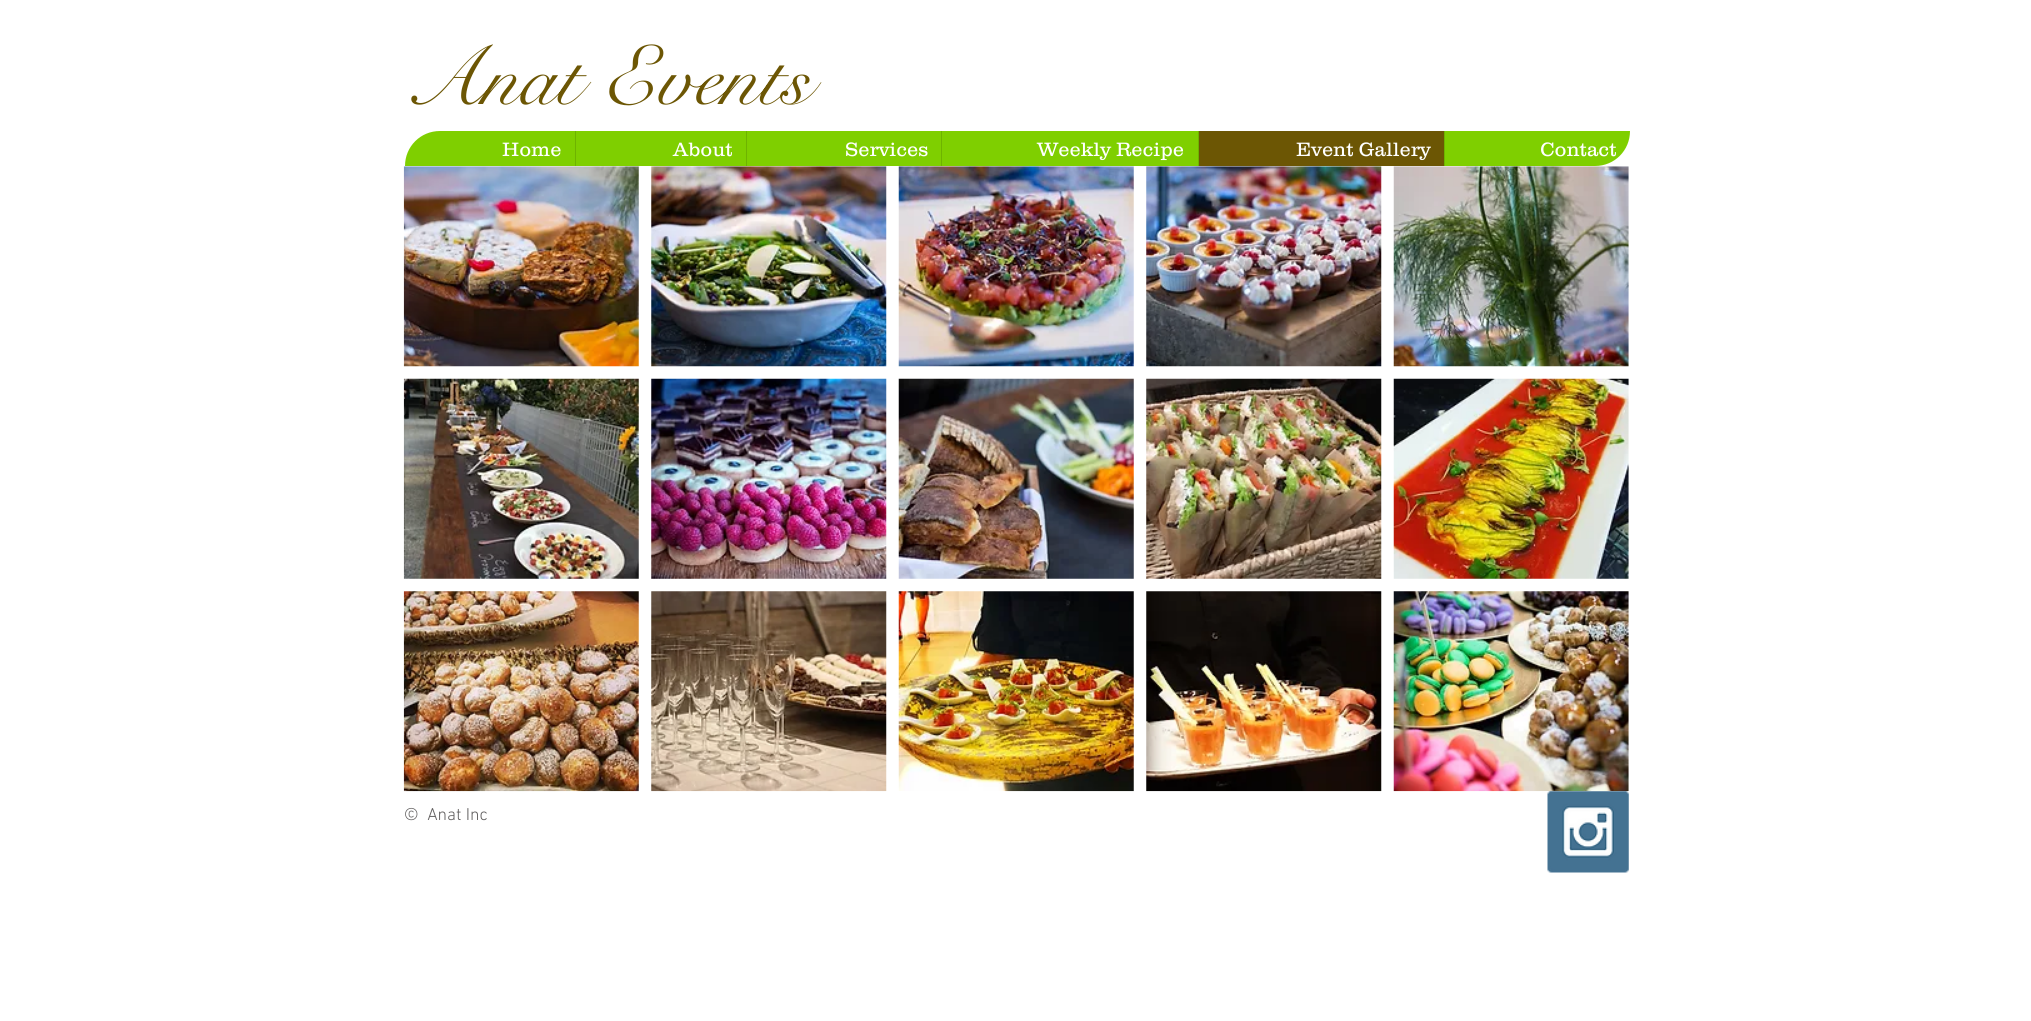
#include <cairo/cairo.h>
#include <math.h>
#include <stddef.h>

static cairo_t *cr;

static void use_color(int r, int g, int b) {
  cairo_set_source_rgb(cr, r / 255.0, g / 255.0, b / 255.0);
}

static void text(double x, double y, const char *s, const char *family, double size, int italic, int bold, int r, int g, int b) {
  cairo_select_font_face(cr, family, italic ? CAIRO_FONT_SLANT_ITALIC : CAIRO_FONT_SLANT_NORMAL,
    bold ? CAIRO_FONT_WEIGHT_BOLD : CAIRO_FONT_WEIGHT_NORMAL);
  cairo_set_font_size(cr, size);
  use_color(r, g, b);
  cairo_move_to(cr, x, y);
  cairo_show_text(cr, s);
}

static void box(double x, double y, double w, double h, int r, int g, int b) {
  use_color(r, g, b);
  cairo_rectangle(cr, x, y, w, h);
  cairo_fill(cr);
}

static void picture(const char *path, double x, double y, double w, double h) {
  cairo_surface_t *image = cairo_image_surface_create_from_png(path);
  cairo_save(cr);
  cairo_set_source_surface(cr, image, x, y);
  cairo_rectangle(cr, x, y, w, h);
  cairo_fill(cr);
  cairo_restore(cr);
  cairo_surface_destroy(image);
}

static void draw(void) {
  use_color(255, 255, 255);
  cairo_paint(cr);
  use_color(127, 207, 0);
  cairo_new_path(cr);
  cairo_move_to(cr, 440, 131);
  cairo_line_to(cr, 1630, 131);
  cairo_curve_to(cr, 1630, 150.5, 1614.5, 166, 1595, 166);
  cairo_line_to(cr, 405, 166);
  cairo_curve_to(cr, 405, 146.5, 420.5, 131, 440, 131);
  cairo_close_path(cr);
  cairo_fill(cr);
  box(575, 131, 1, 35, 110, 179, 0);
  box(746, 131, 1, 35, 110, 179, 0);
  box(941, 131, 1, 35, 110, 179, 0);
  box(1199, 131, 245, 35, 108, 86, 4);
  box(1198, 131, 1, 35, 110, 179, 0);
  box(1444, 131, 1, 35, 110, 179, 0);
  picture("img_01.png", 403, 166, 236, 201);
  picture("img_02.png", 651, 166, 236, 201);
  picture("img_03.png", 898, 166, 236, 201);
  picture("img_04.png", 1146, 166, 236, 201);
  picture("img_05.png", 1393, 166, 236, 201);
  picture("img_06.png", 403, 378, 236, 201);
  picture("img_07.png", 651, 378, 236, 201);
  picture("img_08.png", 898, 378, 236, 201);
  picture("img_09.png", 1146, 378, 236, 201);
  picture("img_10.png", 1393, 378, 236, 201);
  picture("img_11.png", 403, 591, 236, 201);
  picture("img_12.png", 651, 591, 236, 201);
  picture("img_13.png", 898, 591, 236, 201);
  picture("img_14.png", 1146, 591, 236, 201);
  picture("img_15.png", 1393, 591, 236, 201);
  picture("img_16.png", 1547, 791, 82, 82);
  text(404, 104, "Anat Events", "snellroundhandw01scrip", 83.75, 0, 0, 108, 86, 4);
  text(502, 156, "Home", "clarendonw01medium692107 Light", 20, 0, 0, 255, 255, 255);
  text(673, 156, "About", "clarendonw01medium692107 Light", 20, 0, 0, 255, 255, 255);
  text(845, 156, "Services", "clarendonw01medium692107 Light", 20, 0, 0, 255, 255, 255);
  text(1037, 156, "Weekly Recipe", "clarendonw01medium692107 Light", 20, 0, 0, 255, 255, 255);
  text(1296, 156, "Event Gallery", "clarendonw01medium692107 Light", 20, 0, 0, 255, 255, 255);
  text(1540, 156, "Contact", "clarendonw01medium692107 Light", 20, 0, 0, 255, 255, 255);
  text(404, 820, "©  Anat Inc", "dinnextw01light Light", 17.5, 0, 0, 96, 94, 94);
}

int main(void) {
  cairo_surface_t *surface = cairo_image_surface_create(CAIRO_FORMAT_RGB24, 2031, 1021);
  cr = cairo_create(surface);
  cairo_font_options_t *options = cairo_font_options_create();
  cairo_font_options_set_hint_metrics(options, CAIRO_HINT_METRICS_OFF);
  cairo_font_options_set_hint_style(options, CAIRO_HINT_STYLE_NONE);
  cairo_set_font_options(cr, options);
  cairo_set_miter_limit(cr, 4);
  draw();
  cairo_surface_write_to_png(surface, "out.png");
  cairo_font_options_destroy(options);
  cairo_destroy(cr);
  cairo_surface_destroy(surface);
  return 0;
}
